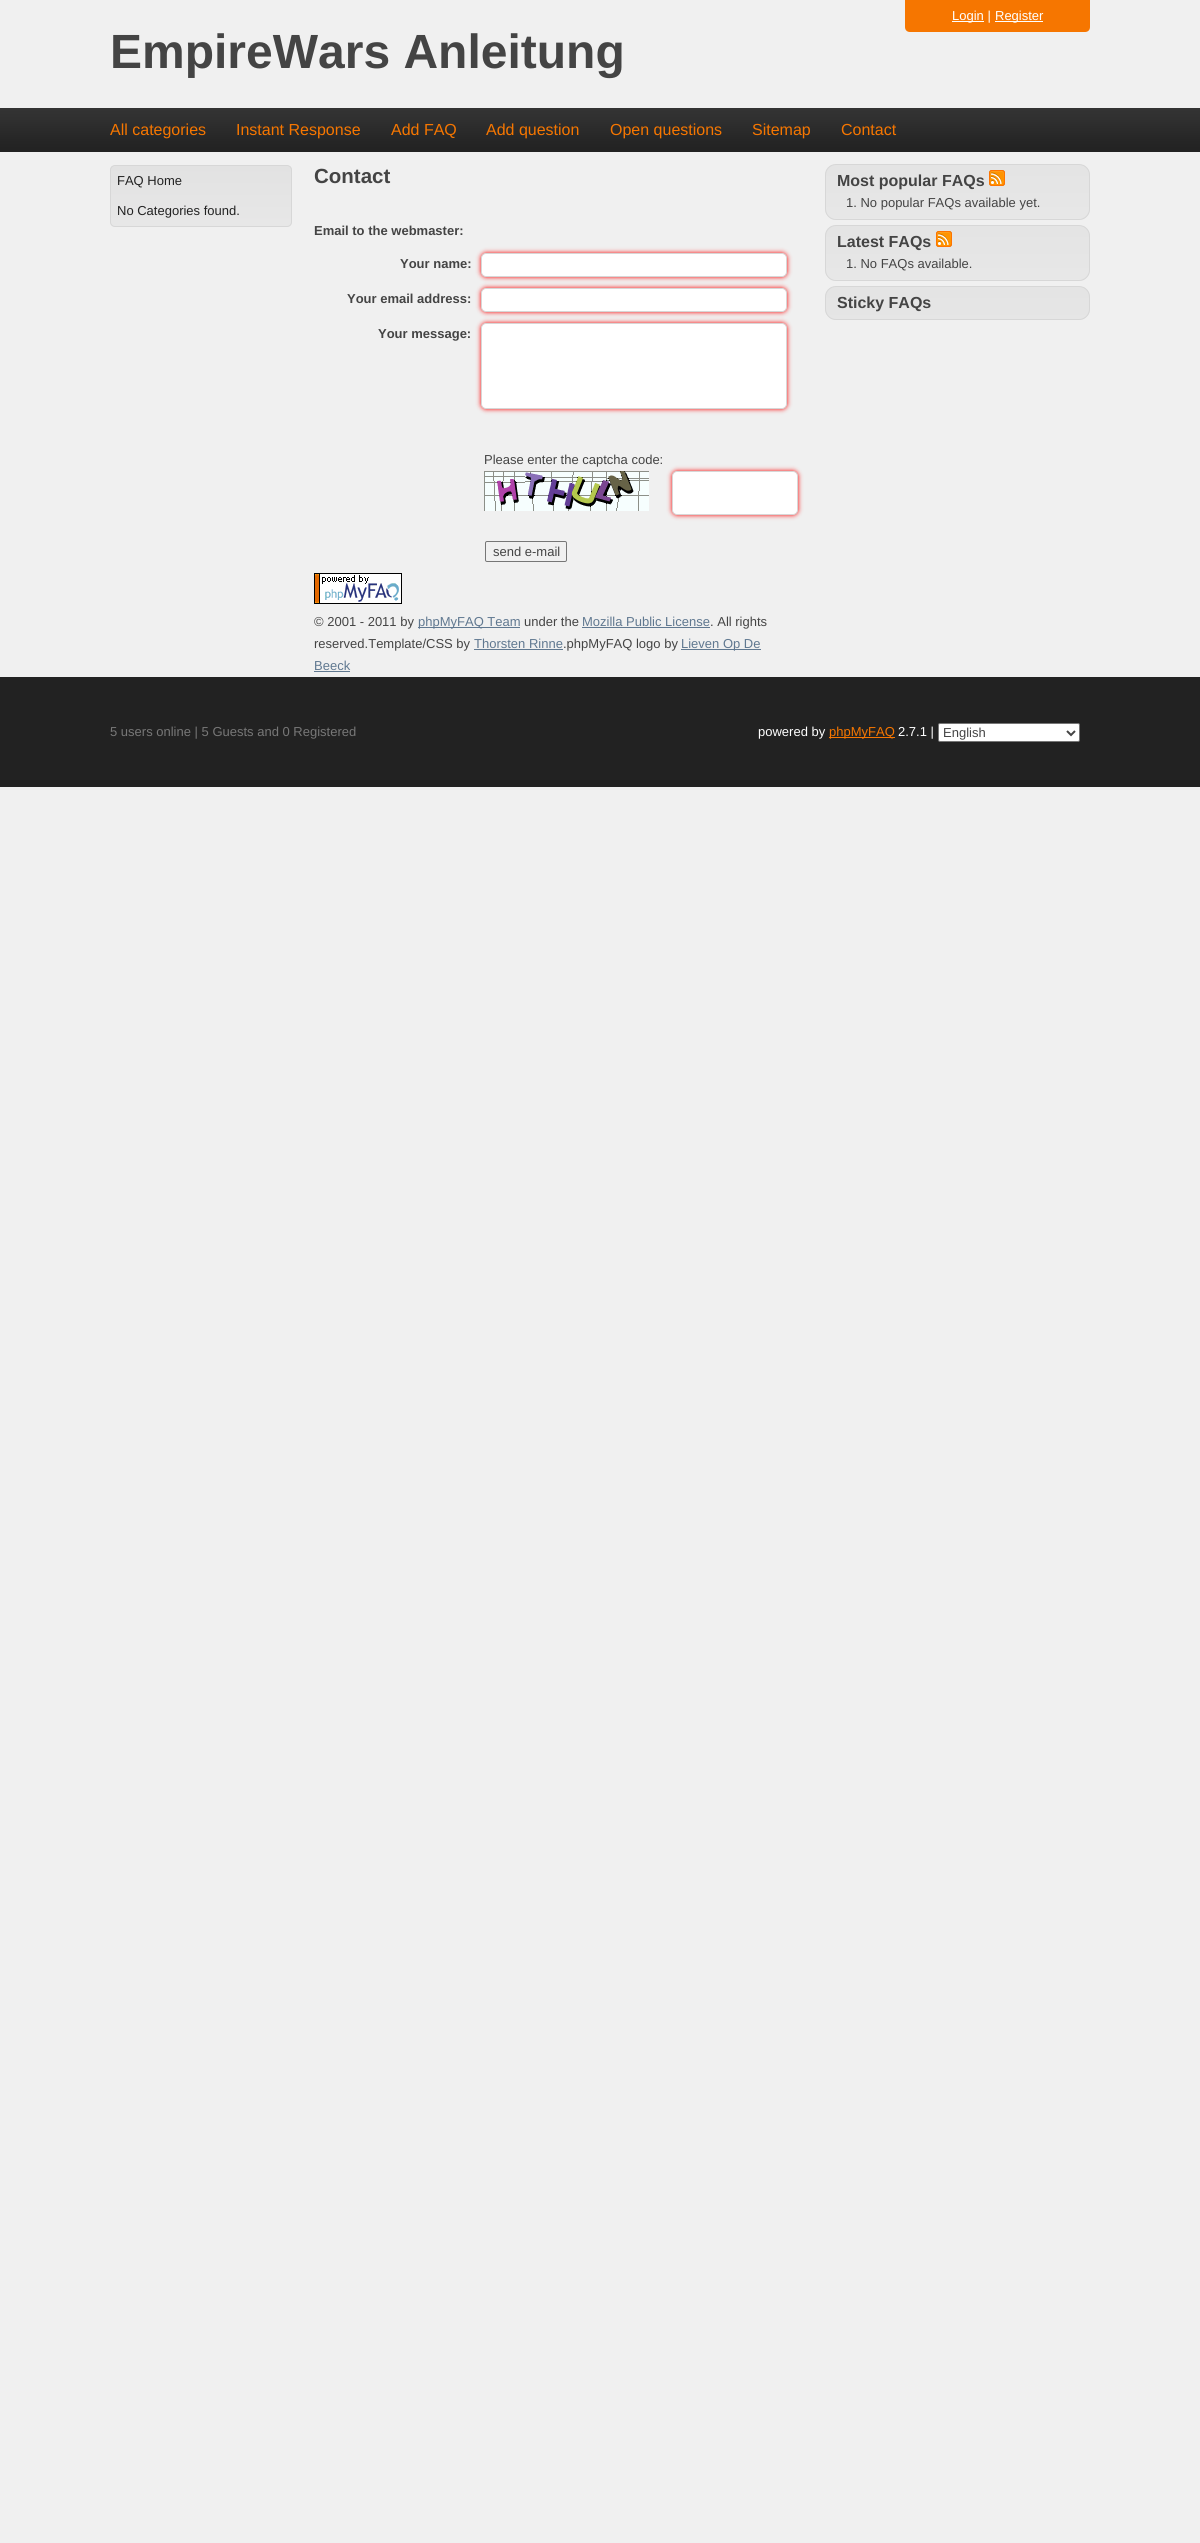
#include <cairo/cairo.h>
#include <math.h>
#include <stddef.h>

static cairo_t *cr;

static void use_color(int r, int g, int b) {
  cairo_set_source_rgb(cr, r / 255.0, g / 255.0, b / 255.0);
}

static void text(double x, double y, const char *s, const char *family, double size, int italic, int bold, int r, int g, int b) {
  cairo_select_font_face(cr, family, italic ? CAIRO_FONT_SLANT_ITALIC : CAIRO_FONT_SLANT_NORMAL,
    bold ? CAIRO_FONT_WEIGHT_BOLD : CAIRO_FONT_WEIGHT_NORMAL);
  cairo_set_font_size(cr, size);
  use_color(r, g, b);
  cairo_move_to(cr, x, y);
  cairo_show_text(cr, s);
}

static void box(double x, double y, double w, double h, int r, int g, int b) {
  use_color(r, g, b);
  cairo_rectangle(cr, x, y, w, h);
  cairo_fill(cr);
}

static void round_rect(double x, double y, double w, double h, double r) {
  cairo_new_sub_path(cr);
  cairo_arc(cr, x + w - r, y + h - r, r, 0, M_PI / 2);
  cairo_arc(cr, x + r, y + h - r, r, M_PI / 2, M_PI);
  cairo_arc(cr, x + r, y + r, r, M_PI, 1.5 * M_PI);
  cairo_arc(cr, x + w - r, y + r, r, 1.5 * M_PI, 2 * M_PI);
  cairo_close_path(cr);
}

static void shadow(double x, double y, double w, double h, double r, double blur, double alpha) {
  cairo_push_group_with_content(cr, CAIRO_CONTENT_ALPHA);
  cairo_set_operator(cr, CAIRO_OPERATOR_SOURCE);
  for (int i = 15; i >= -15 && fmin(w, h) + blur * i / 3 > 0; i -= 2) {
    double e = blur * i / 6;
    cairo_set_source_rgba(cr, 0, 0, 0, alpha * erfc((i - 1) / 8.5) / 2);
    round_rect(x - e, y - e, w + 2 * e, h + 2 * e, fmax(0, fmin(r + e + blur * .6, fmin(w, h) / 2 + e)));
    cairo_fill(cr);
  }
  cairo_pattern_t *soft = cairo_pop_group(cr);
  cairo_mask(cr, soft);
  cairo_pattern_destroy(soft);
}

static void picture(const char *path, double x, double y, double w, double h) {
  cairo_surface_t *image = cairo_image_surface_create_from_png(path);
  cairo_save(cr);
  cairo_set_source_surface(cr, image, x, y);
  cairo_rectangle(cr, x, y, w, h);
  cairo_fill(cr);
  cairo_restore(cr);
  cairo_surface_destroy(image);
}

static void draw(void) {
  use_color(240, 240, 240);
  cairo_paint(cr);
  use_color(246, 118, 0);
  cairo_new_path(cr);
  cairo_move_to(cr, 905, 0);
  cairo_line_to(cr, 1090, 0);
  cairo_line_to(cr, 1090, 27);
  cairo_curve_to(cr, 1090, 30, 1088, 32, 1085, 32);
  cairo_line_to(cr, 910, 32);
  cairo_curve_to(cr, 907, 32, 905, 30, 905, 27);
  cairo_close_path(cr);
  cairo_fill(cr);
  box(952, 21, 32, 1, 255, 255, 255);
  box(995, 21, 48, 1, 255, 255, 255);
  picture("img_01.png", 0, 108, 1200, 44);
  picture("img_02.png", 110, 166, 182, 61);
  round_rect(110.5, 165.5, 181, 61, 4.5);
  use_color(215, 215, 215);
  cairo_set_line_width(cr, 1);
  cairo_stroke(cr);
  use_color(255, 0, 0);
  shadow(481, 253, 306, 24, 5, 2.5, 1);
  use_color(255, 255, 255);
  round_rect(481.5, 253.5, 305, 23, 4.5);
  cairo_fill_preserve(cr);
  use_color(215, 215, 215);
  cairo_stroke(cr);
  use_color(255, 0, 0);
  shadow(481, 288, 306, 24, 5, 2.5, 1);
  use_color(255, 255, 255);
  round_rect(481.5, 288.5, 305, 23, 4.5);
  cairo_fill_preserve(cr);
  use_color(215, 215, 215);
  cairo_stroke(cr);
  use_color(255, 0, 0);
  shadow(481, 323, 306, 86, 5, 2.5, 1);
  use_color(255, 255, 255);
  round_rect(481.5, 323.5, 305, 85, 4.5);
  cairo_fill_preserve(cr);
  use_color(215, 215, 215);
  cairo_stroke(cr);
  picture("img_03.png", 484, 471, 165, 40);
  use_color(255, 0, 0);
  shadow(672, 471, 126, 44, 5, 2.5, 1);
  use_color(255, 255, 255);
  round_rect(672.5, 471.5, 125, 43, 4.5);
  cairo_fill_preserve(cr);
  use_color(215, 215, 215);
  cairo_stroke(cr);
  round_rect(485.5, 541.5, 81, 20, 1.5);
  use_color(118, 118, 118);
  cairo_stroke(cr);
  picture("img_04.png", 314, 573, 88, 31);
  box(418, 627, 102, 1, 96, 120, 144);
  box(582, 627, 128, 1, 96, 120, 144);
  box(474, 649, 89, 1, 96, 120, 144);
  box(681, 649, 80, 1, 96, 120, 144);
  box(314, 671, 36, 1, 96, 120, 144);
  picture("img_05.png", 825, 165, 265, 55);
  round_rect(825.5, 164.5, 264, 55, 10.5);
  use_color(215, 215, 215);
  cairo_stroke(cr);
  picture("img_06.png", 989, 170, 16, 16);
  picture("img_05.png", 825, 226, 265, 55);
  round_rect(825.5, 225.5, 264, 55, 10.5);
  cairo_stroke(cr);
  picture("img_06.png", 936, 231, 16, 16);
  picture("img_07.png", 825, 287, 265, 33);
  round_rect(825.5, 286.5, 264, 33, 10.5);
  cairo_stroke(cr);
  box(0, 677, 1200, 110, 34, 34, 34);
  box(829, 737, 66, 1, 246, 118, 0);
  use_color(255, 255, 255);
  round_rect(938.5, 723.5, 141, 18, 1.5);
  cairo_fill_preserve(cr);
  use_color(118, 118, 118);
  cairo_stroke(cr);
  cairo_new_path(cr);
  cairo_move_to(cr, 1067, 731);
  cairo_line_to(cr, 1071, 735);
  cairo_line_to(cr, 1075, 731);
  use_color(68, 68, 68);
  cairo_set_line_width(cr, 2);
  cairo_stroke(cr);
  text(952, 20, "Login |", "Liberation Sans", 13, 0, 0, 255, 255, 255);
  text(995, 20, "Register", "Liberation Sans", 13, 0, 0, 255, 255, 255);
  text(110, 68, "EmpireWars Anleitung", "Liberation Sans", 48, 0, 1, 68, 68, 68);
  text(110, 135, "All categories", "Liberation Sans", 16, 0, 0, 246, 118, 0);
  text(236, 135, "Instant Response", "Liberation Sans", 16, 0, 0, 246, 118, 0);
  text(391, 135, "Add FAQ", "Liberation Sans", 16, 0, 0, 246, 118, 0);
  text(486, 135, "Add question", "Liberation Sans", 16, 0, 0, 246, 118, 0);
  text(610, 135, "Open questions", "Liberation Sans", 16, 0, 0, 246, 118, 0);
  text(752, 135, "Sitemap", "Liberation Sans", 16, 0, 0, 246, 118, 0);
  text(841, 135, "Contact", "Liberation Sans", 16, 0, 0, 246, 118, 0);
  text(117, 185, "FAQ Home", "Liberation Sans", 13, 0, 0, 34, 34, 34);
  text(117, 215, "No Categories found.", "Liberation Sans", 13, 0, 0, 34, 34, 34);
  text(314, 183, "Contact", "Liberation Sans", 20.5, 0, 1, 68, 68, 68);
  text(314, 235, "Email to the webmaster:", "Liberation Sans", 13, 0, 1, 68, 68, 68);
  text(400, 268, "Your name:", "Liberation Sans", 13, 0, 1, 68, 68, 68);
  text(347, 303, "Your email address:", "Liberation Sans", 13, 0, 1, 68, 68, 68);
  text(378, 338, "Your message:", "Liberation Sans", 13, 0, 1, 68, 68, 68);
  text(484, 464, "Please enter the captcha code:", "Liberation Sans", 13, 0, 0, 68, 68, 68);
  text(493, 556, "send e-mail", "Liberation Sans", 13, 0, 0, 68, 68, 68);
  text(314, 626, "© 2001 - 2011 by", "Liberation Sans", 13, 0, 0, 68, 68, 68);
  text(418, 626, "phpMyFAQ Team", "Liberation Sans", 13, 0, 0, 96, 120, 144);
  text(524, 626, "under the", "Liberation Sans", 13, 0, 0, 68, 68, 68);
  text(582, 626, "Mozilla Public License", "Liberation Sans", 13, 0, 0, 96, 120, 144);
  text(710, 626, ". All rights", "Liberation Sans", 13, 0, 0, 68, 68, 68);
  text(314, 648, "reserved.Template/CSS by", "Liberation Sans", 13, 0, 0, 68, 68, 68);
  text(474, 648, "Thorsten Rinne", "Liberation Sans", 13, 0, 0, 96, 120, 144);
  text(563, 648, ".phpMyFAQ logo by", "Liberation Sans", 13, 0, 0, 68, 68, 68);
  text(681, 648, "Lieven Op De", "Liberation Sans", 13, 0, 0, 96, 120, 144);
  text(314, 670, "Beeck", "Liberation Sans", 13, 0, 0, 96, 120, 144);
  text(837, 186, "Most popular FAQs", "Liberation Sans", 16, 0, 1, 68, 68, 68);
  text(846, 207, "1. No popular FAQs available yet.", "Liberation Sans", 13, 0, 0, 68, 68, 68);
  text(837, 247, "Latest FAQs", "Liberation Sans", 16, 0, 1, 68, 68, 68);
  text(846, 268, "1. No FAQs available.", "Liberation Sans", 13, 0, 0, 68, 68, 68);
  text(837, 308, "Sticky FAQs", "Liberation Sans", 16, 0, 1, 68, 68, 68);
  text(110, 736, "5 users online | 5 Guests and 0 Registered", "Liberation Sans", 13, 0, 0, 119, 119, 119);
  text(758, 736, "powered by", "Liberation Sans", 13, 0, 0, 255, 255, 255);
  text(829, 736, "phpMyFAQ", "Liberation Sans", 13, 0, 0, 246, 118, 0);
  text(898, 736, "2.7.1 |", "Liberation Sans", 13, 0, 0, 255, 255, 255);
  text(943, 737, "English", "Liberation Sans", 13, 0, 0, 68, 68, 68);
}

int main(void) {
  cairo_surface_t *surface = cairo_image_surface_create(CAIRO_FORMAT_RGB24, 1200, 2543);
  cr = cairo_create(surface);
  cairo_font_options_t *options = cairo_font_options_create();
  cairo_font_options_set_hint_metrics(options, CAIRO_HINT_METRICS_OFF);
  cairo_font_options_set_hint_style(options, CAIRO_HINT_STYLE_NONE);
  cairo_set_font_options(cr, options);
  cairo_set_miter_limit(cr, 4);
  draw();
  cairo_surface_write_to_png(surface, "out.png");
  cairo_font_options_destroy(options);
  cairo_destroy(cr);
  cairo_surface_destroy(surface);
  return 0;
}
